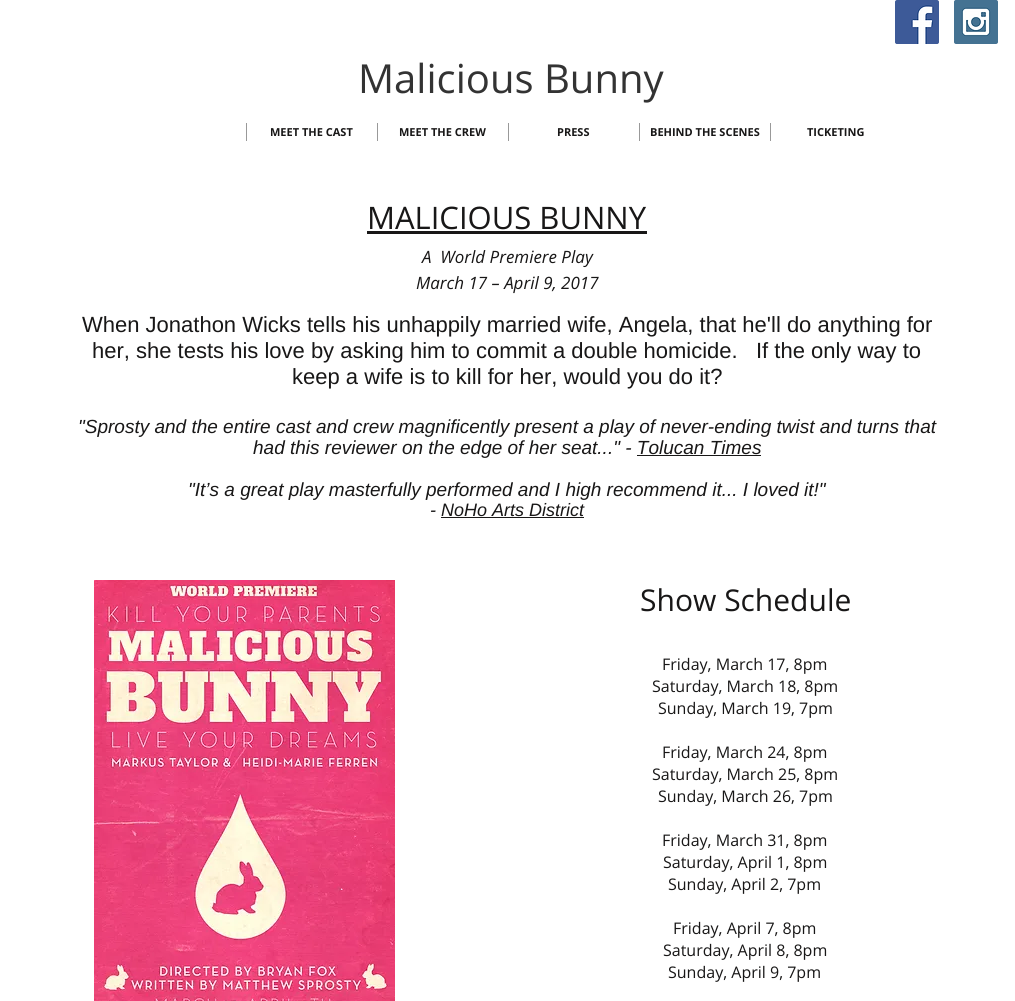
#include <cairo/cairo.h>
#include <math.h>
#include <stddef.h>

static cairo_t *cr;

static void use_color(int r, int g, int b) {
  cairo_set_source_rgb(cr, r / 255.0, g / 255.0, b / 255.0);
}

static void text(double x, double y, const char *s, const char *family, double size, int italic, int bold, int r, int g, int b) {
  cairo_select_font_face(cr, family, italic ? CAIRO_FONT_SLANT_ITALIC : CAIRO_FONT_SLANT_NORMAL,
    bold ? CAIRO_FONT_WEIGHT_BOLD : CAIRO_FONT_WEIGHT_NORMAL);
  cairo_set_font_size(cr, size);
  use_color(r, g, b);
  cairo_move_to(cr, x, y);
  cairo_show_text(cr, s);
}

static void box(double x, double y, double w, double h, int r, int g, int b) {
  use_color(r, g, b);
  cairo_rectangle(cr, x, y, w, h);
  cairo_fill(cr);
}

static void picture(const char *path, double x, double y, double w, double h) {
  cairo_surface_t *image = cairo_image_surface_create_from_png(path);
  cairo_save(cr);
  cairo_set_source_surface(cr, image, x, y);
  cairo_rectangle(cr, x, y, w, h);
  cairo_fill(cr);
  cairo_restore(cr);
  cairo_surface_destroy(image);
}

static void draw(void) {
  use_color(255, 255, 255);
  cairo_paint(cr);
  box(367, 231, 280, 3, 24, 23, 23);
  box(637, 455, 124, 1, 24, 23, 23);
  box(441, 517, 143, 1, 24, 23, 23);
  picture("img_01.png", 94, 580, 301, 421);
  picture("img_02.png", 895, 0, 44, 44);
  picture("img_03.png", 954, 0, 44, 44);
  box(246, 123, 1, 18, 153, 153, 153);
  box(377, 123, 1, 18, 153, 153, 153);
  box(508, 123, 1, 18, 153, 153, 153);
  box(639, 123, 1, 18, 153, 153, 153);
  box(770, 123, 1, 18, 153, 153, 153);
  text(358, 93, "Malicious Bunny", "Open Sans", 40, 0, 0, 51, 51, 51);
  text(367, 229, "MALICIOUS BUNNY", "Open Sans", 31, 0, 0, 24, 23, 23);
  text(422, 263, "A  World Premiere Play", "Open Sans", 17, 1, 0, 24, 23, 23);
  text(416, 289, "March 17 – April 9, 2017", "Open Sans", 17, 1, 0, 24, 23, 23);
  text(82, 332, "When Jonathon Wicks tells his unhappily married wife, Angela, that he'll do anything for", "Liberation Sans", 22, 0, 0, 24, 23, 23);
  text(92, 358, "her, she tests his love by asking him to commit a double homicide.   If the only way to", "Liberation Sans", 22, 0, 0, 24, 23, 23);
  text(292, 384, "keep a wife is to kill for her, would you do it?", "Liberation Sans", 22, 0, 0, 24, 23, 23);
  text(78, 433, "\"Sprosty and the entire cast and crew magnificently present a play of never-ending twist and turns that", "Liberation Sans", 19, 1, 0, 24, 23, 23);
  text(253, 454, "had this reviewer on the edge of her seat...\" - Tolucan Times", "Liberation Sans", 19, 1, 0, 24, 23, 23);
  text(188, 496, "\"It’s a great play masterfully performed and I high recommend it... I loved it!\"", "Liberation Sans", 19, 1, 0, 24, 23, 23);
  text(430, 516, "- NoHo Arts District", "Liberation Sans", 18, 1, 0, 24, 23, 23);
  text(640, 611, "Show Schedule", "Open Sans", 30, 0, 0, 24, 23, 23);
  text(662, 670, "Friday, March 17, 8pm", "Open Sans", 16, 0, 0, 24, 23, 23);
  text(652, 692, "Saturday, March 18, 8pm", "Open Sans", 16, 0, 0, 24, 23, 23);
  text(658, 714, "Sunday, March 19, 7pm", "Open Sans", 16, 0, 0, 24, 23, 23);
  text(662, 758, "Friday, March 24, 8pm", "Open Sans", 16, 0, 0, 24, 23, 23);
  text(652, 780, "Saturday, March 25, 8pm", "Open Sans", 16, 0, 0, 24, 23, 23);
  text(658, 802, "Sunday, March 26, 7pm", "Open Sans", 16, 0, 0, 24, 23, 23);
  text(662, 846, "Friday, March 31, 8pm", "Open Sans", 16, 0, 0, 24, 23, 23);
  text(663, 868, "Saturday, April 1, 8pm", "Open Sans", 16, 0, 0, 24, 23, 23);
  text(668, 890, "Sunday, April 2, 7pm", "Open Sans", 16, 0, 0, 24, 23, 23);
  text(673, 934, "Friday, April 7, 8pm", "Open Sans", 16, 0, 0, 24, 23, 23);
  text(663, 956, "Saturday, April 8, 8pm", "Open Sans", 16, 0, 0, 24, 23, 23);
  text(668, 978, "Sunday, April 9, 7pm", "Open Sans", 16, 0, 0, 24, 23, 23);
  text(270, 136, "MEET THE CAST", "Open Sans", 11, 0, 1, 24, 23, 23);
  text(399, 136, "MEET THE CREW", "Open Sans", 11, 0, 1, 24, 23, 23);
  text(557, 136, "PRESS", "Open Sans", 11, 0, 1, 24, 23, 23);
  text(650, 136, "BEHIND THE SCENES", "Open Sans", 11, 0, 1, 24, 23, 23);
  text(807, 136, "TICKETING", "Open Sans", 11, 0, 1, 24, 23, 23);
}

int main(void) {
  cairo_surface_t *surface = cairo_image_surface_create(CAIRO_FORMAT_RGB24, 1015, 1001);
  cr = cairo_create(surface);
  cairo_font_options_t *options = cairo_font_options_create();
  cairo_font_options_set_hint_metrics(options, CAIRO_HINT_METRICS_OFF);
  cairo_font_options_set_hint_style(options, CAIRO_HINT_STYLE_NONE);
  cairo_set_font_options(cr, options);
  cairo_set_miter_limit(cr, 4);
  draw();
  cairo_surface_write_to_png(surface, "out.png");
  cairo_font_options_destroy(options);
  cairo_destroy(cr);
  cairo_surface_destroy(surface);
  return 0;
}
